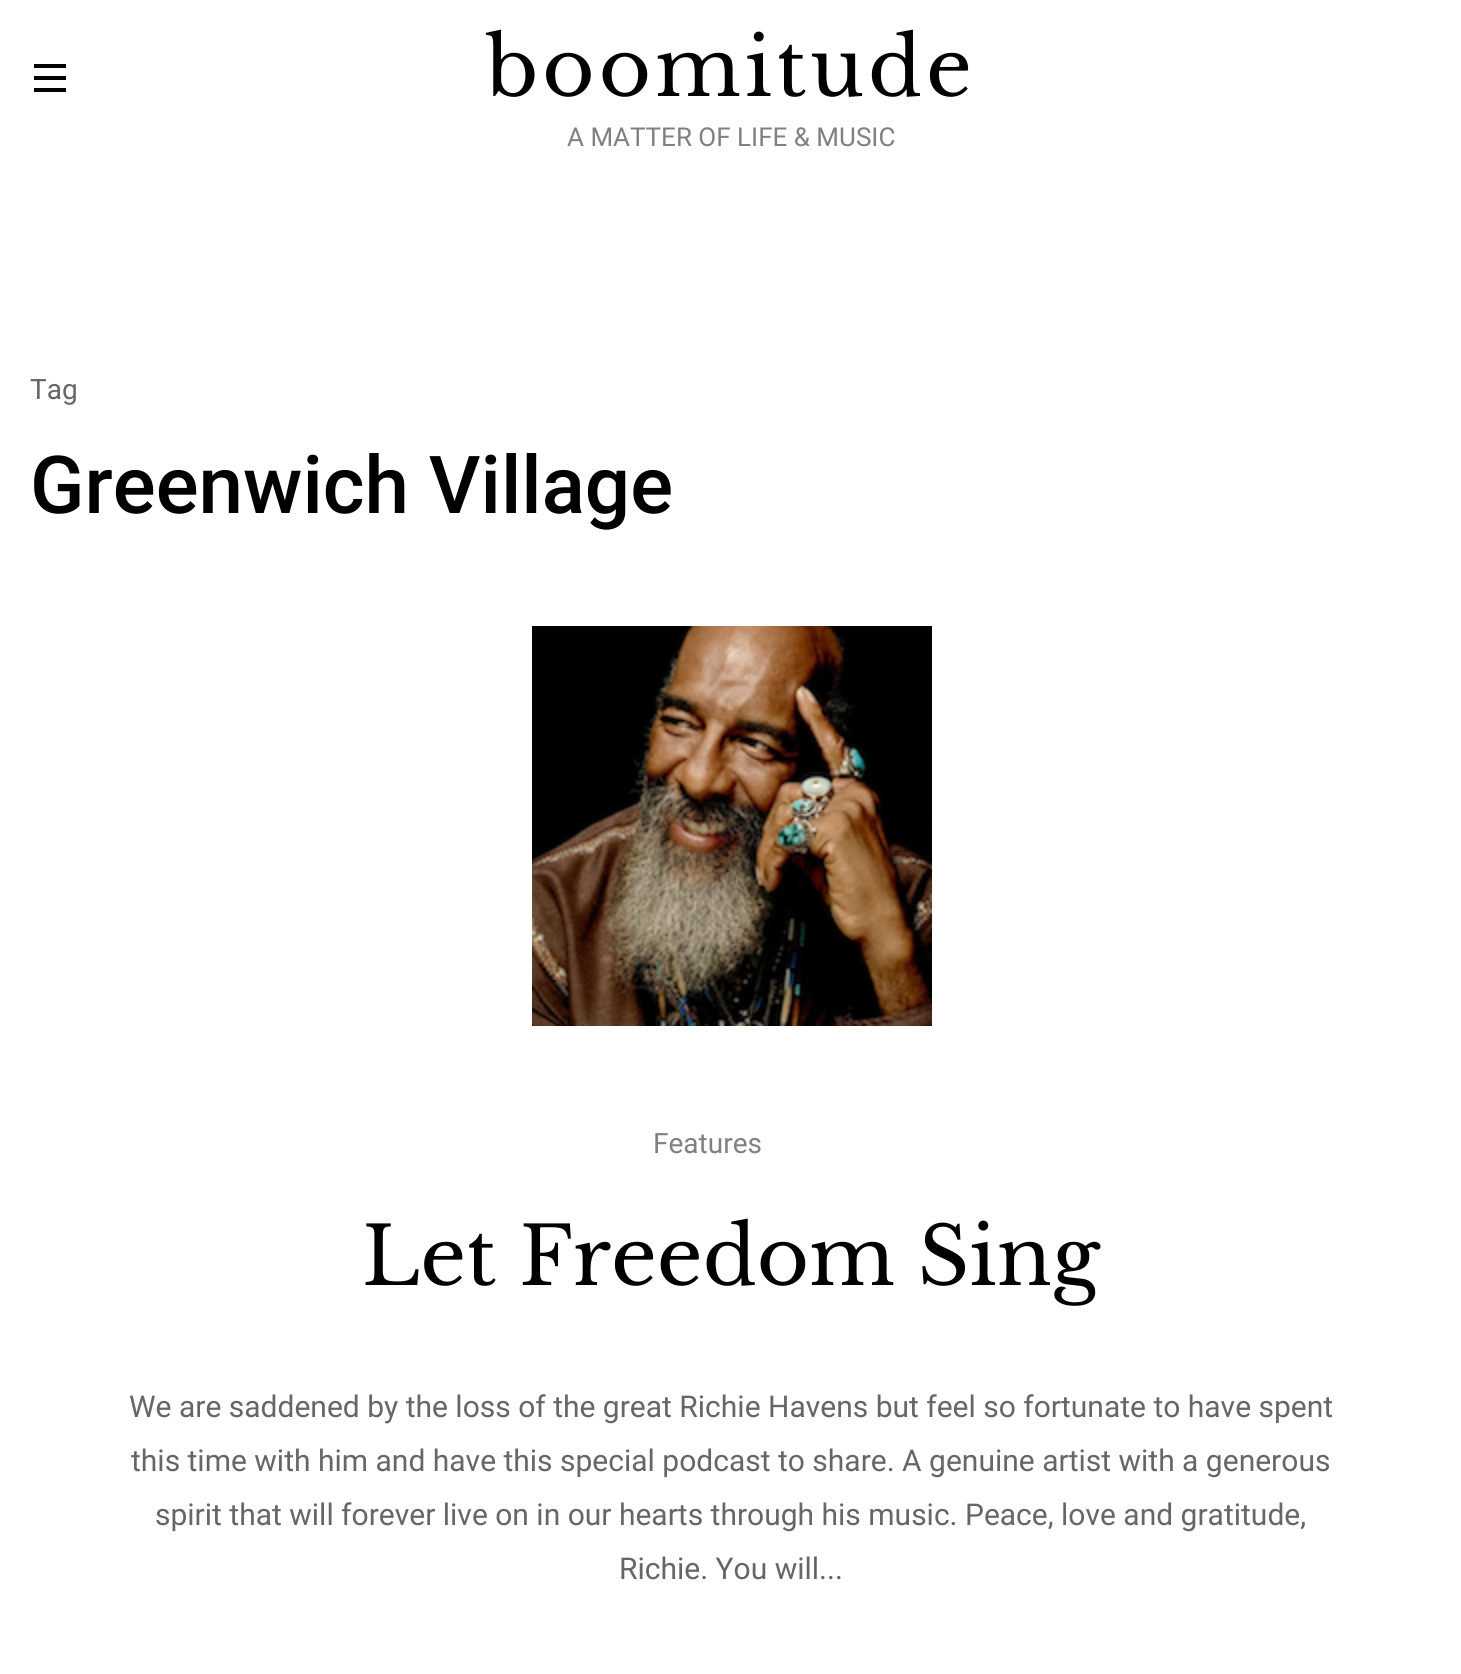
#include <cairo/cairo.h>
#include <math.h>
#include <stddef.h>

static cairo_t *cr;

static void use_color(int r, int g, int b) {
  cairo_set_source_rgb(cr, r / 255.0, g / 255.0, b / 255.0);
}

static void text(double x, double y, const char *s, const char *family, double size, int italic, int bold, int r, int g, int b) {
  cairo_select_font_face(cr, family, italic ? CAIRO_FONT_SLANT_ITALIC : CAIRO_FONT_SLANT_NORMAL,
    bold ? CAIRO_FONT_WEIGHT_BOLD : CAIRO_FONT_WEIGHT_NORMAL);
  cairo_set_font_size(cr, size);
  use_color(r, g, b);
  cairo_move_to(cr, x, y);
  cairo_show_text(cr, s);
}

static void spaced_text(double x, double y, const char *s, double letter, double word) {
  cairo_move_to(cr, x, y);
  while (*s) {
    char ch[5] = {0};
    int n = 0;
    do ch[n++] = *s++; while ((*s & 0xC0) == 0x80);
    cairo_show_text(cr, ch);
    cairo_rel_move_to(cr, letter + word * (*ch == ' '), 0);
  }
}

static void box(double x, double y, double w, double h, int r, int g, int b) {
  use_color(r, g, b);
  cairo_rectangle(cr, x, y, w, h);
  cairo_fill(cr);
}

static void picture(const char *path, double x, double y, double w, double h) {
  cairo_surface_t *image = cairo_image_surface_create_from_png(path);
  cairo_save(cr);
  cairo_set_source_surface(cr, image, x, y);
  cairo_rectangle(cr, x, y, w, h);
  cairo_fill(cr);
  cairo_restore(cr);
  cairo_surface_destroy(image);
}

static void draw(void) {
  use_color(255, 255, 255);
  cairo_paint(cr);
  box(34, 64, 32, 4, 0, 0, 0);
  box(34, 76, 32, 4, 0, 0, 0);
  box(34, 88, 32, 4, 0, 0, 0);
  picture("img_01.png", 532, 626, 400, 400);
  cairo_select_font_face(cr, "Libre Baskerville", CAIRO_FONT_SLANT_NORMAL, CAIRO_FONT_WEIGHT_NORMAL);
  cairo_set_font_size(cr, 80);
  spaced_text(486, 96, "boomitude", 4, 0);
  text(567, 146, "A MATTER OF LIFE & MUSIC", "Roboto", 26, 0, 0, 128, 128, 128);
  text(30, 399, "Tag", "Roboto", 28, 0, 0, 102, 102, 102);
  text(30, 513, "Greenwich Village", "Roboto Medium", 80, 0, 0, 0, 0, 0);
  text(653, 1153, "Features", "Roboto", 28, 0, 0, 128, 128, 128);
  text(362, 1285, "Let Freedom Sing", "Libre Baskerville", 80, 0, 0, 0, 0, 0);
  text(129, 1417, "We are saddened by the loss of the great Richie Havens but feel so fortunate to have spent", "Roboto", 30, 0, 0, 102, 102, 102);
  text(131, 1471, "this time with him and have this special podcast to share. A genuine artist with a generous", "Roboto", 30, 0, 0, 102, 102, 102);
  text(155, 1525, "spirit that will forever live on in our hearts through his music. Peace, love and gratitude,", "Roboto", 30, 0, 0, 102, 102, 102);
  text(619, 1579, "Richie. You will...", "Roboto", 30, 0, 0, 102, 102, 102);
}

int main(void) {
  cairo_surface_t *surface = cairo_image_surface_create(CAIRO_FORMAT_RGB24, 1461, 1674);
  cr = cairo_create(surface);
  cairo_font_options_t *options = cairo_font_options_create();
  cairo_font_options_set_hint_metrics(options, CAIRO_HINT_METRICS_OFF);
  cairo_font_options_set_hint_style(options, CAIRO_HINT_STYLE_NONE);
  cairo_set_font_options(cr, options);
  cairo_set_miter_limit(cr, 4);
  draw();
  cairo_surface_write_to_png(surface, "out.png");
  cairo_font_options_destroy(options);
  cairo_destroy(cr);
  cairo_surface_destroy(surface);
  return 0;
}
